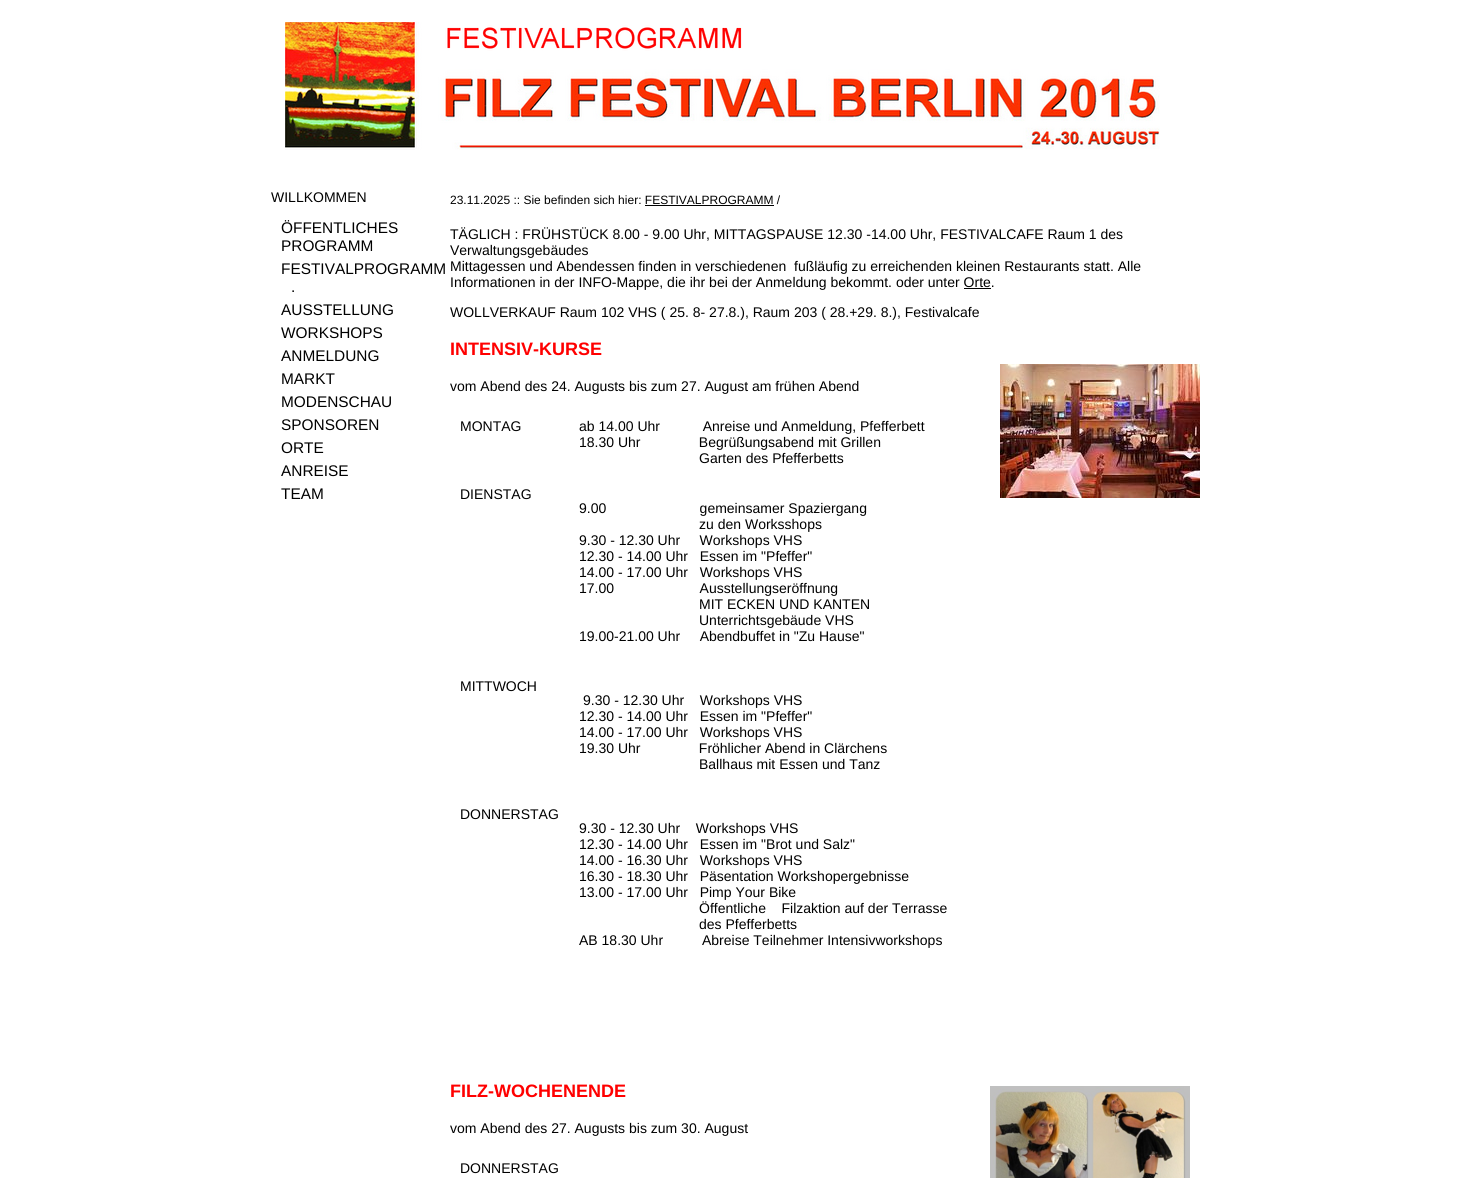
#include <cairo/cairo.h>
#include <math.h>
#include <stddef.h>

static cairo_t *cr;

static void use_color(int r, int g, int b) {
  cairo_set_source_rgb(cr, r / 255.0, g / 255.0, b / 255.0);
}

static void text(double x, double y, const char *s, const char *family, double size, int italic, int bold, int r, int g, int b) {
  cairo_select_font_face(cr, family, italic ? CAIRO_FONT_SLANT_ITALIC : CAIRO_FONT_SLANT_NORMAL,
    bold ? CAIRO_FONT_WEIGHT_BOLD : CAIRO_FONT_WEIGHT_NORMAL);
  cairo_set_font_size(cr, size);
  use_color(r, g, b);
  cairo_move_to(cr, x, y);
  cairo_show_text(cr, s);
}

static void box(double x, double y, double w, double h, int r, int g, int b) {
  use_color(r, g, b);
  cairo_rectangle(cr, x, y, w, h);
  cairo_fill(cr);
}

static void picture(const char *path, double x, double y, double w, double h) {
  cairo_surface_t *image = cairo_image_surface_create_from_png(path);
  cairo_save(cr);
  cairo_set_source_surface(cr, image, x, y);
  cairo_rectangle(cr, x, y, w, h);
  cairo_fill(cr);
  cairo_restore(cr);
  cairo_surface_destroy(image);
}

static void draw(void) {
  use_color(255, 255, 255);
  cairo_paint(cr);
  picture("img_01.png", 285, 22, 875, 128);
  box(645, 205, 129, 1, 0, 0, 0);
  box(964, 288, 27, 1, 0, 0, 0);
  picture("img_02.png", 1000, 364, 200, 134);
  picture("img_03.png", 990, 1086, 200, 92);
  text(271, 202, "WILLKOMMEN", "Liberation Sans", 14, 0, 0, 0, 0, 0);
  text(281, 233, "ÖFFENTLICHES", "Liberation Sans", 15.4, 0, 0, 0, 0, 0);
  text(281, 251, "PROGRAMM", "Liberation Sans", 15.4, 0, 0, 0, 0, 0);
  text(281, 274, "FESTIVALPROGRAMM", "Liberation Sans", 15.4, 0, 0, 0, 0, 0);
  text(291, 292, ".", "Liberation Sans", 15.4, 0, 0, 0, 0, 0);
  text(281, 315, "AUSSTELLUNG", "Liberation Sans", 15.4, 0, 0, 0, 0, 0);
  text(281, 338, "WORKSHOPS", "Liberation Sans", 15.4, 0, 0, 0, 0, 0);
  text(281, 361, "ANMELDUNG", "Liberation Sans", 15.4, 0, 0, 0, 0, 0);
  text(281, 384, "MARKT", "Liberation Sans", 15.4, 0, 0, 0, 0, 0);
  text(281, 407, "MODENSCHAU", "Liberation Sans", 15.4, 0, 0, 0, 0, 0);
  text(281, 430, "SPONSOREN", "Liberation Sans", 15.4, 0, 0, 0, 0, 0);
  text(281, 453, "ORTE", "Liberation Sans", 15.4, 0, 0, 0, 0, 0);
  text(281, 476, "ANREISE", "Liberation Sans", 15.4, 0, 0, 0, 0, 0);
  text(281, 499, "TEAM", "Liberation Sans", 15.4, 0, 0, 0, 0, 0);
  text(450, 204, "23.11.2025 :: Sie befinden sich hier: FESTIVALPROGRAMM /", "Liberation Sans", 12, 0, 0, 0, 0, 0);
  text(450, 239, "TÄGLICH : FRÜHSTÜCK 8.00 - 9.00 Uhr, MITTAGSPAUSE 12.30 -14.00 Uhr, FESTIVALCAFE Raum 1 des", "Liberation Sans", 14, 0, 0, 0, 0, 0);
  text(450, 255, "Verwaltungsgebäudes", "Liberation Sans", 14, 0, 0, 0, 0, 0);
  text(450, 271, "Mittagessen und Abendessen finden in verschiedenen  fußläufig zu erreichenden kleinen Restaurants statt. Alle", "Liberation Sans", 14, 0, 0, 0, 0, 0);
  text(450, 287, "Informationen in der INFO-Mappe, die ihr bei der Anmeldung bekommt. oder unter Orte.", "Liberation Sans", 14, 0, 0, 0, 0, 0);
  text(450, 317, "WOLLVERKAUF Raum 102 VHS ( 25. 8- 27.8.), Raum 203 ( 28.+29. 8.), Festivalcafe", "Liberation Sans", 14, 0, 0, 0, 0, 0);
  text(450, 355, "INTENSIV-KURSE", "Liberation Sans", 18, 0, 1, 255, 0, 0);
  text(450, 391, "vom Abend des 24. Augusts bis zum 27. August am frühen Abend", "Liberation Sans", 14, 0, 0, 0, 0, 0);
  text(460, 431, "MONTAG", "Liberation Sans", 14, 0, 0, 0, 0, 0);
  text(579, 431, "ab 14.00 Uhr           Anreise und Anmeldung, Pfefferbett", "Liberation Sans", 14, 0, 0, 0, 0, 0);
  text(579, 447, "18.30 Uhr               Begrüßungsabend mit Grillen", "Liberation Sans", 14, 0, 0, 0, 0, 0);
  text(699, 463, "Garten des Pfefferbetts", "Liberation Sans", 14, 0, 0, 0, 0, 0);
  text(460, 499, "DIENSTAG", "Liberation Sans", 14, 0, 0, 0, 0, 0);
  text(579, 513, "9.00                        gemeinsamer Spaziergang", "Liberation Sans", 14, 0, 0, 0, 0, 0);
  text(699, 529, "zu den Worksshops", "Liberation Sans", 14, 0, 0, 0, 0, 0);
  text(579, 545, "9.30 - 12.30 Uhr     Workshops VHS", "Liberation Sans", 14, 0, 0, 0, 0, 0);
  text(579, 561, "12.30 - 14.00 Uhr   Essen im \"Pfeffer\"", "Liberation Sans", 14, 0, 0, 0, 0, 0);
  text(579, 577, "14.00 - 17.00 Uhr   Workshops VHS", "Liberation Sans", 14, 0, 0, 0, 0, 0);
  text(579, 593, "17.00                      Ausstellungseröffnung", "Liberation Sans", 14, 0, 0, 0, 0, 0);
  text(699, 609, "MIT ECKEN UND KANTEN", "Liberation Sans", 14, 0, 0, 0, 0, 0);
  text(699, 625, "Unterrichtsgebäude VHS", "Liberation Sans", 14, 0, 0, 0, 0, 0);
  text(579, 641, "19.00-21.00 Uhr     Abendbuffet in \"Zu Hause\"", "Liberation Sans", 14, 0, 0, 0, 0, 0);
  text(460, 691, "MITTWOCH", "Liberation Sans", 14, 0, 0, 0, 0, 0);
  text(583, 705, "9.30 - 12.30 Uhr    Workshops VHS", "Liberation Sans", 14, 0, 0, 0, 0, 0);
  text(579, 721, "12.30 - 14.00 Uhr   Essen im \"Pfeffer\"", "Liberation Sans", 14, 0, 0, 0, 0, 0);
  text(579, 737, "14.00 - 17.00 Uhr   Workshops VHS", "Liberation Sans", 14, 0, 0, 0, 0, 0);
  text(579, 753, "19.30 Uhr               Fröhlicher Abend in Clärchens", "Liberation Sans", 14, 0, 0, 0, 0, 0);
  text(699, 769, "Ballhaus mit Essen und Tanz", "Liberation Sans", 14, 0, 0, 0, 0, 0);
  text(460, 819, "DONNERSTAG", "Liberation Sans", 14, 0, 0, 0, 0, 0);
  text(579, 833, "9.30 - 12.30 Uhr    Workshops VHS", "Liberation Sans", 14, 0, 0, 0, 0, 0);
  text(579, 849, "12.30 - 14.00 Uhr   Essen im \"Brot und Salz\"", "Liberation Sans", 14, 0, 0, 0, 0, 0);
  text(579, 865, "14.00 - 16.30 Uhr   Workshops VHS", "Liberation Sans", 14, 0, 0, 0, 0, 0);
  text(579, 881, "16.30 - 18.30 Uhr   Päsentation Workshopergebnisse", "Liberation Sans", 14, 0, 0, 0, 0, 0);
  text(579, 897, "13.00 - 17.00 Uhr   Pimp Your Bike", "Liberation Sans", 14, 0, 0, 0, 0, 0);
  text(699, 913, "Öffentliche    Filzaktion auf der Terrasse", "Liberation Sans", 14, 0, 0, 0, 0, 0);
  text(699, 929, "des Pfefferbetts", "Liberation Sans", 14, 0, 0, 0, 0, 0);
  text(579, 945, "AB 18.30 Uhr          Abreise Teilnehmer Intensivworkshops", "Liberation Sans", 14, 0, 0, 0, 0, 0);
  text(450, 1097, "FILZ-WOCHENENDE", "Liberation Sans", 18, 0, 1, 255, 0, 0);
  text(450, 1133, "vom Abend des 27. Augusts bis zum 30. August", "Liberation Sans", 14, 0, 0, 0, 0, 0);
  text(460, 1173, "DONNERSTAG", "Liberation Sans", 14, 0, 0, 0, 0, 0);
}

int main(void) {
  cairo_surface_t *surface = cairo_image_surface_create(CAIRO_FORMAT_RGB24, 1480, 1178);
  cr = cairo_create(surface);
  cairo_font_options_t *options = cairo_font_options_create();
  cairo_font_options_set_hint_metrics(options, CAIRO_HINT_METRICS_OFF);
  cairo_font_options_set_hint_style(options, CAIRO_HINT_STYLE_NONE);
  cairo_set_font_options(cr, options);
  cairo_set_miter_limit(cr, 4);
  draw();
  cairo_surface_write_to_png(surface, "out.png");
  cairo_font_options_destroy(options);
  cairo_destroy(cr);
  cairo_surface_destroy(surface);
  return 0;
}
